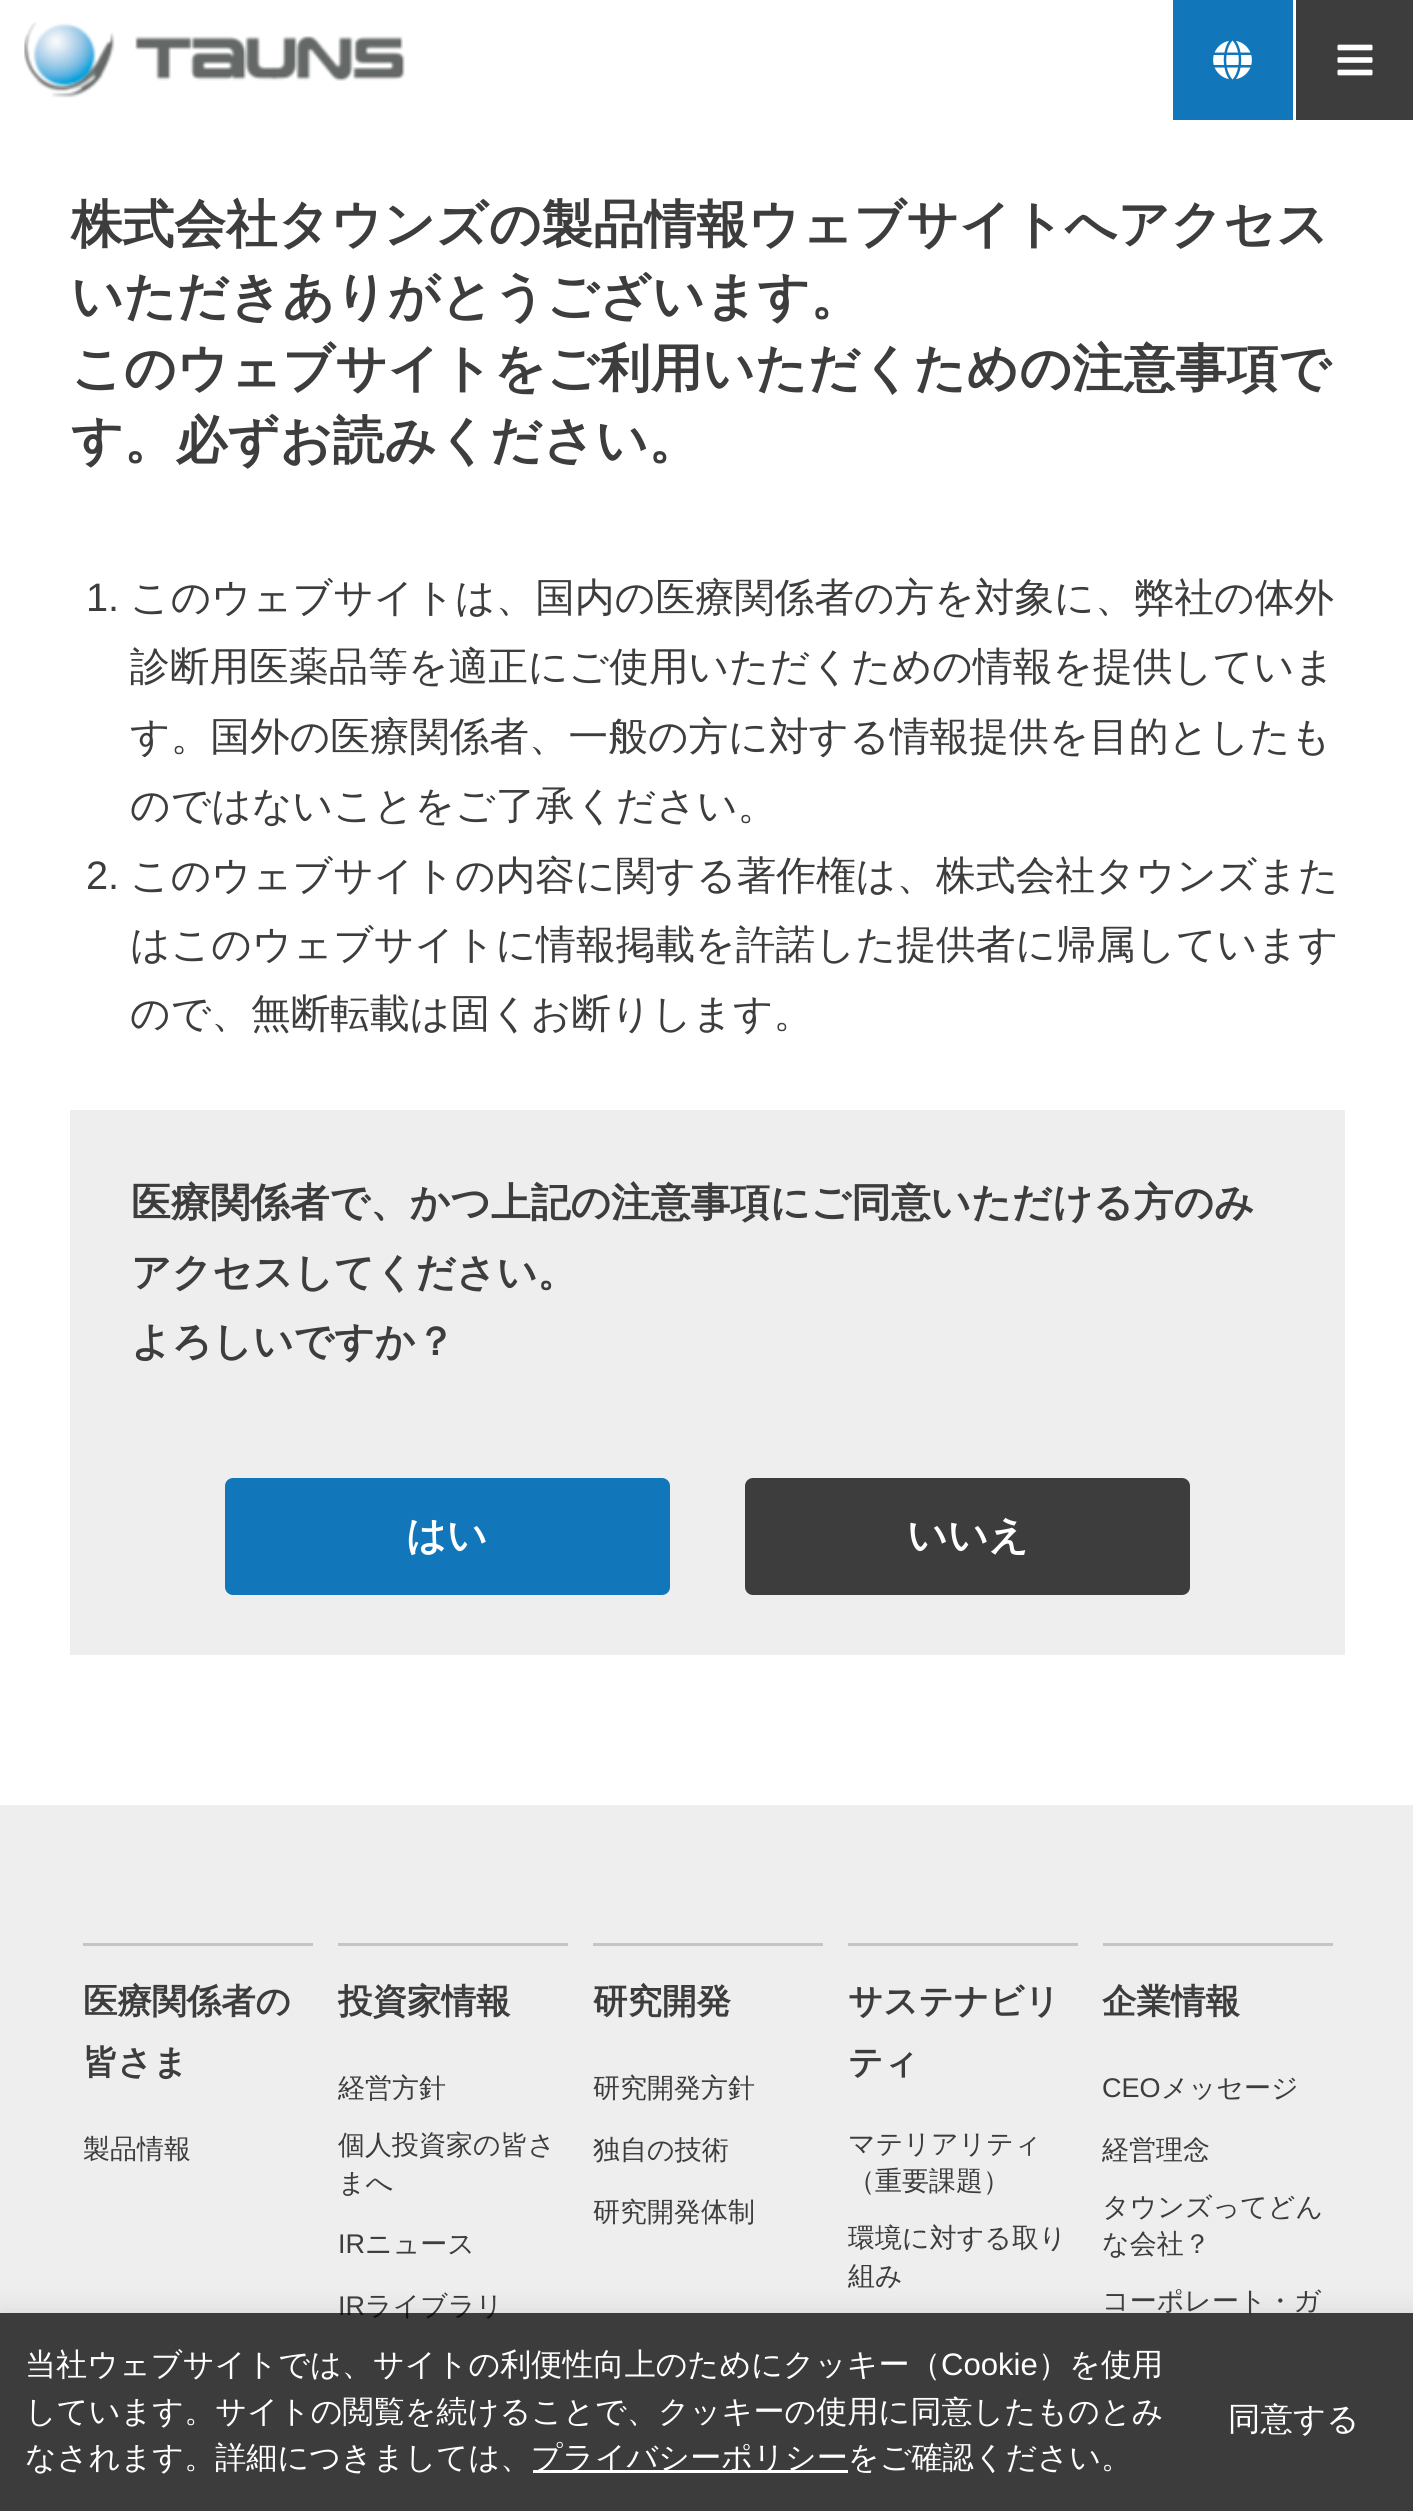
#include <cairo/cairo.h>
#include <math.h>
#include <stddef.h>

static cairo_t *cr;

static void use_color(int r, int g, int b) {
  cairo_set_source_rgb(cr, r / 255.0, g / 255.0, b / 255.0);
}

static void text(double x, double y, const char *s, const char *family, double size, int italic, int bold, int r, int g, int b) {
  cairo_select_font_face(cr, family, italic ? CAIRO_FONT_SLANT_ITALIC : CAIRO_FONT_SLANT_NORMAL,
    bold ? CAIRO_FONT_WEIGHT_BOLD : CAIRO_FONT_WEIGHT_NORMAL);
  cairo_set_font_size(cr, size);
  use_color(r, g, b);
  cairo_move_to(cr, x, y);
  cairo_show_text(cr, s);
}

static void box(double x, double y, double w, double h, int r, int g, int b) {
  use_color(r, g, b);
  cairo_rectangle(cr, x, y, w, h);
  cairo_fill(cr);
}

static void round_rect(double x, double y, double w, double h, double r) {
  cairo_new_sub_path(cr);
  cairo_arc(cr, x + w - r, y + h - r, r, 0, M_PI / 2);
  cairo_arc(cr, x + r, y + h - r, r, M_PI / 2, M_PI);
  cairo_arc(cr, x + r, y + r, r, M_PI, 1.5 * M_PI);
  cairo_arc(cr, x + w - r, y + r, r, 1.5 * M_PI, 2 * M_PI);
  cairo_close_path(cr);
}

static void shadow(double x, double y, double w, double h, double r, double blur, double alpha) {
  cairo_push_group_with_content(cr, CAIRO_CONTENT_ALPHA);
  cairo_set_operator(cr, CAIRO_OPERATOR_SOURCE);
  for (int i = 15; i >= -15 && fmin(w, h) + blur * i / 3 > 0; i -= 2) {
    double e = blur * i / 6;
    cairo_set_source_rgba(cr, 0, 0, 0, alpha * erfc((i - 1) / 8.5) / 2);
    round_rect(x - e, y - e, w + 2 * e, h + 2 * e, fmax(0, fmin(r + e + blur * .6, fmin(w, h) / 2 + e)));
    cairo_fill(cr);
  }
  cairo_pattern_t *soft = cairo_pop_group(cr);
  cairo_mask(cr, soft);
  cairo_pattern_destroy(soft);
}

static void picture(const char *path, double x, double y, double w, double h) {
  cairo_surface_t *image = cairo_image_surface_create_from_png(path);
  cairo_save(cr);
  cairo_set_source_surface(cr, image, x, y);
  cairo_rectangle(cr, x, y, w, h);
  cairo_fill(cr);
  cairo_restore(cr);
  cairo_surface_destroy(image);
}

static void draw(void) {
  use_color(255, 255, 255);
  cairo_paint(cr);
  picture("img_01.png", 24, 22, 381, 76);
  box(1173, 0, 120, 120, 17, 119, 186);
  picture("img_02.png", 1213, 40, 39, 40);
  box(1296, 0, 117, 120, 61, 61, 61);
  picture("img_03.png", 1337, 44, 36, 32);
  box(70, 1110, 1275, 545, 238, 238, 238);
  use_color(17, 119, 186);
  round_rect(227.5, 1480.5, 440, 112, 5.5);
  cairo_fill_preserve(cr);
  cairo_set_line_width(cr, 5);
  cairo_stroke(cr);
  use_color(61, 61, 61);
  round_rect(747.5, 1480.5, 440, 112, 5.5);
  cairo_fill_preserve(cr);
  cairo_stroke(cr);
  box(0, 1805, 1413, 706, 238, 238, 238);
  box(83, 1943, 230, 3, 197, 197, 197);
  box(338, 1943, 230, 3, 197, 197, 197);
  box(593, 1943, 230, 3, 197, 197, 197);
  box(848, 1943, 230, 3, 197, 197, 197);
  box(1103, 1943, 230, 3, 197, 197, 197);
  cairo_save(cr);
  cairo_rectangle(cr, 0, 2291, 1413, 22);
  cairo_clip(cr);
  use_color(172, 171, 171);
  shadow(0, 2310, 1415, 200, 0, 12.5, 0.3);
  cairo_restore(cr);
  text(71, 242, "株式会社タウンズの製品情報ウェブサイトへアクセス", "WenQuanYi Zen Hei", 51.6, 0, 1, 61, 61, 61);
  text(71, 314, "いただきありがとうございます。", "WenQuanYi Zen Hei", 51.6, 0, 1, 61, 61, 61);
  text(71, 386, "このウェブサイトをご利用いただくための注意事項で", "WenQuanYi Zen Hei", 51.6, 0, 1, 61, 61, 61);
  text(71, 458, "す。必ずお読みください。", "WenQuanYi Zen Hei", 51.6, 0, 1, 61, 61, 61);
  text(86, 611, "1.", "Liberation Sans", 39.7, 0, 0, 61, 61, 61);
  text(130, 611, "このウェブサイトは、国内の医療関係者の方を対象に、弊社の体外", "WenQuanYi Zen Hei Medium", 39.7, 0, 0, 61, 61, 61);
  text(130, 680, "診断用医薬品等を適正にご使用いただくための情報を提供していま", "WenQuanYi Zen Hei Medium", 39.7, 0, 0, 61, 61, 61);
  text(130, 750, "す。国外の医療関係者、一般の方に対する情報提供を目的としたも", "WenQuanYi Zen Hei Medium", 39.7, 0, 0, 61, 61, 61);
  text(130, 819, "のではないことをご了承ください。", "WenQuanYi Zen Hei Medium", 39.7, 0, 0, 61, 61, 61);
  text(86, 889, "2.", "Liberation Sans", 39.7, 0, 0, 61, 61, 61);
  text(130, 889, "このウェブサイトの内容に関する著作権は、株式会社タウンズまた", "WenQuanYi Zen Hei Medium", 39.7, 0, 0, 61, 61, 61);
  text(130, 958, "はこのウェブサイトに情報掲載を許諾した提供者に帰属しています", "WenQuanYi Zen Hei Medium", 39.7, 0, 0, 61, 61, 61);
  text(130, 1027, "ので、無断転載は固くお断りします。", "WenQuanYi Zen Hei Medium", 39.7, 0, 0, 61, 61, 61);
  text(131, 1216, "医療関係者で、かつ上記の注意事項にご同意いただける方のみ", "WenQuanYi Zen Hei", 39.7, 0, 1, 61, 61, 61);
  text(131, 1286, "アクセスしてください。", "WenQuanYi Zen Hei", 39.7, 0, 1, 61, 61, 61);
  text(131, 1355, "よろしいですか？", "WenQuanYi Zen Hei", 39.7, 0, 1, 61, 61, 61);
  text(406, 1549, "はい", "WenQuanYi Zen Hei", 39.7, 0, 1, 255, 255, 255);
  text(907, 1549, "いいえ", "WenQuanYi Zen Hei", 39.7, 0, 1, 255, 255, 255);
  text(83, 2013, "医療関係者の", "WenQuanYi Zen Hei", 34.5, 0, 1, 61, 61, 61);
  text(83, 2074, "皆さま", "WenQuanYi Zen Hei", 34.5, 0, 1, 61, 61, 61);
  text(83, 2158, "製品情報", "WenQuanYi Zen Hei Medium", 27, 0, 0, 61, 61, 61);
  text(338, 2013, "投資家情報", "WenQuanYi Zen Hei", 34.5, 0, 1, 61, 61, 61);
  text(338, 2097, "経営方針", "WenQuanYi Zen Hei Medium", 27, 0, 0, 61, 61, 61);
  text(338, 2154, "個人投資家の皆さ", "WenQuanYi Zen Hei Medium", 27, 0, 0, 61, 61, 61);
  text(338, 2192, "まへ", "WenQuanYi Zen Hei Medium", 27, 0, 0, 61, 61, 61);
  text(338, 2253, "IR", "Liberation Sans", 27, 0, 0, 61, 61, 61);
  text(365, 2253, "ニュース", "WenQuanYi Zen Hei Medium", 27, 0, 0, 61, 61, 61);
  text(338, 2315, "IR", "Liberation Sans", 27, 0, 0, 61, 61, 61);
  text(365, 2315, "ライブラリ", "WenQuanYi Zen Hei Medium", 27, 0, 0, 61, 61, 61);
  text(593, 2013, "研究開発", "WenQuanYi Zen Hei", 34.5, 0, 1, 61, 61, 61);
  text(593, 2097, "研究開発方針", "WenQuanYi Zen Hei Medium", 27, 0, 0, 61, 61, 61);
  text(593, 2159, "独自の技術", "WenQuanYi Zen Hei Medium", 27, 0, 0, 61, 61, 61);
  text(593, 2221, "研究開発体制", "WenQuanYi Zen Hei Medium", 27, 0, 0, 61, 61, 61);
  text(848, 2013, "サステナビリ", "WenQuanYi Zen Hei", 34.5, 0, 1, 61, 61, 61);
  text(848, 2074, "ティ", "WenQuanYi Zen Hei", 34.5, 0, 1, 61, 61, 61);
  text(848, 2153, "マテリアリティ", "WenQuanYi Zen Hei Medium", 27, 0, 0, 61, 61, 61);
  text(848, 2190, "（重要課題）", "WenQuanYi Zen Hei Medium", 27, 0, 0, 61, 61, 61);
  text(848, 2247, "環境に対する取り", "WenQuanYi Zen Hei Medium", 27, 0, 0, 61, 61, 61);
  text(848, 2285, "組み", "WenQuanYi Zen Hei Medium", 27, 0, 0, 61, 61, 61);
  text(1102, 2013, "企業情報", "WenQuanYi Zen Hei", 34.5, 0, 1, 61, 61, 61);
  text(1102, 2097, "CEO", "Liberation Sans", 27, 0, 0, 61, 61, 61);
  text(1161, 2097, "メッセージ", "WenQuanYi Zen Hei Medium", 27, 0, 0, 61, 61, 61);
  text(1102, 2159, "経営理念", "WenQuanYi Zen Hei Medium", 27, 0, 0, 61, 61, 61);
  text(1102, 2216, "タウンズってどん", "WenQuanYi Zen Hei Medium", 27, 0, 0, 61, 61, 61);
  text(1102, 2253, "な会社？", "WenQuanYi Zen Hei Medium", 27, 0, 0, 61, 61, 61);
  text(1102, 2310, "コーポレート・ガ", "WenQuanYi Zen Hei Medium", 27, 0, 0, 61, 61, 61);
  cairo_set_source_rgba(cr, 0, 0, 0, 0.75);
  cairo_rectangle(cr, 0, 2313, 1413, 198);
  cairo_fill(cr);
  text(25, 2375, "当社ウェブサイトでは、サイトの利便性向上のためにクッキー（", "WenQuanYi Zen Hei Medium", 31.1, 0, 0, 255, 255, 255);
  text(941, 2375, "Cookie", "Liberation Sans", 31.1, 0, 0, 255, 255, 255);
  text(1038, 2375, "）を使用", "WenQuanYi Zen Hei Medium", 31.1, 0, 0, 255, 255, 255);
  text(25, 2422, "しています。サイトの閲覧を続けることで、クッキーの使用に同意したものとみ", "WenQuanYi Zen Hei Medium", 31.1, 0, 0, 255, 255, 255);
  text(25, 2468, "なされます。詳細につきましては、", "WenQuanYi Zen Hei Medium", 31.1, 0, 0, 255, 255, 255);
  box(533, 2470, 315, 3, 255, 255, 255);
  text(531, 2468, "プライバシーポリシーをご確認ください。", "WenQuanYi Zen Hei Medium", 31.1, 0, 0, 255, 255, 255);
  text(1228, 2430, "同意する", "WenQuanYi Zen Hei Medium", 32.5, 0, 0, 255, 255, 255);
}

int main(void) {
  cairo_surface_t *surface = cairo_image_surface_create(CAIRO_FORMAT_RGB24, 1413, 2511);
  cr = cairo_create(surface);
  cairo_font_options_t *options = cairo_font_options_create();
  cairo_font_options_set_hint_metrics(options, CAIRO_HINT_METRICS_OFF);
  cairo_font_options_set_hint_style(options, CAIRO_HINT_STYLE_NONE);
  cairo_set_font_options(cr, options);
  cairo_set_miter_limit(cr, 4);
  draw();
  cairo_surface_write_to_png(surface, "out.png");
  cairo_font_options_destroy(options);
  cairo_destroy(cr);
  cairo_surface_destroy(surface);
  return 0;
}
